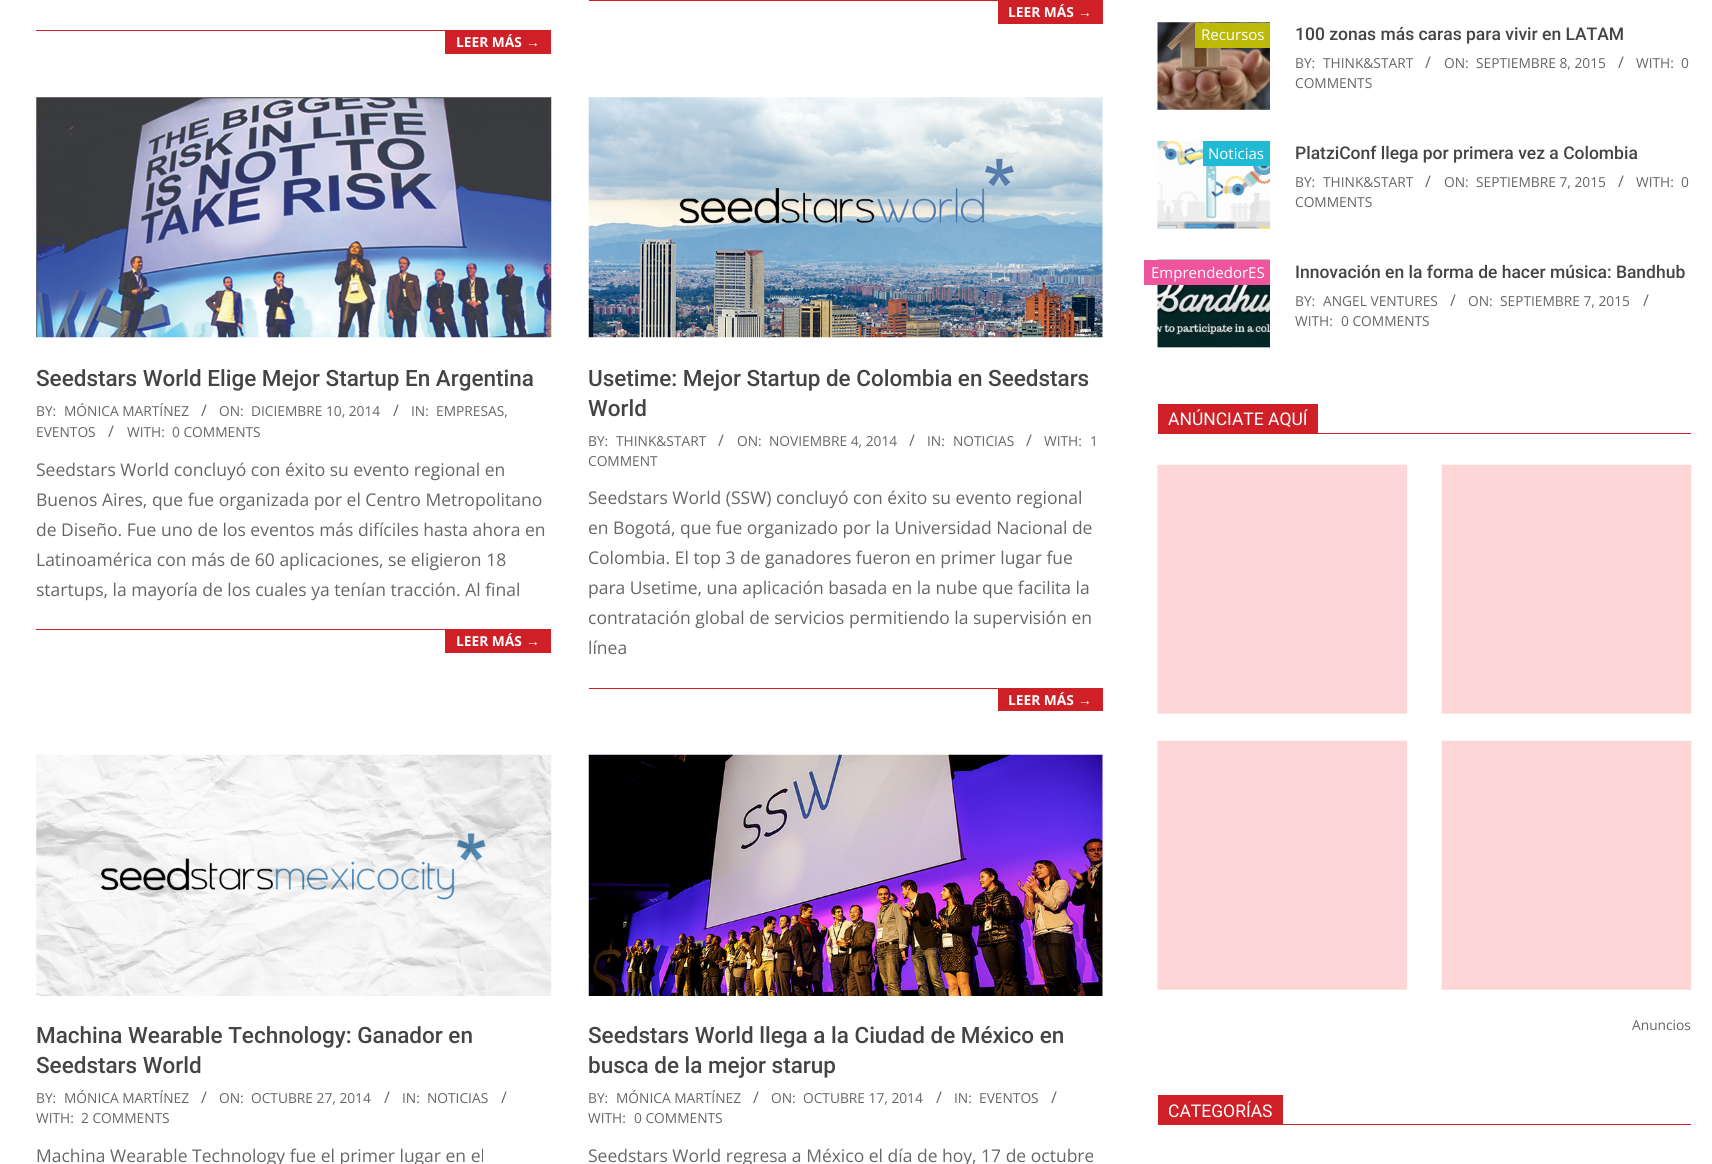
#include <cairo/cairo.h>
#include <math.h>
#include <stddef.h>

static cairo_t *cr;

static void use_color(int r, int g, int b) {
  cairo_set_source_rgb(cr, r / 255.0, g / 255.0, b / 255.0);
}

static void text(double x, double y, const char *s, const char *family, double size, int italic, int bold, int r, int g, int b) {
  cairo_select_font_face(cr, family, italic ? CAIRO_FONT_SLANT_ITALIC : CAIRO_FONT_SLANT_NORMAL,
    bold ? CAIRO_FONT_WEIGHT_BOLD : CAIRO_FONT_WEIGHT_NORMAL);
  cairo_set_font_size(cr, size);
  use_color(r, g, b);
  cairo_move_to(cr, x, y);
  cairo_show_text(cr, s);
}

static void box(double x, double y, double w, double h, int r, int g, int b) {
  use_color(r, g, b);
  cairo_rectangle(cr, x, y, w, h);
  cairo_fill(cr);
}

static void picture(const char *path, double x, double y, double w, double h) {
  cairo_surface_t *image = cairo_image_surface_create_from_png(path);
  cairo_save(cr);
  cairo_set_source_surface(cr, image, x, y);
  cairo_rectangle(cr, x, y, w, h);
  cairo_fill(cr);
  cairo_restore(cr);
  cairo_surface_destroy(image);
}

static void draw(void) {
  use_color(255, 255, 255);
  cairo_paint(cr);
  box(589, 0, 514, 1, 207, 32, 39);
  box(998, 1, 105, 23, 207, 32, 39);
  box(36, 30, 515, 1, 207, 32, 39);
  box(445, 31, 106, 23, 207, 32, 39);
  picture("img_01.png", 36, 97, 516, 241);
  box(36, 629, 515, 1, 207, 32, 39);
  box(445, 630, 106, 23, 207, 32, 39);
  picture("img_02.png", 588, 97, 515, 241);
  box(589, 688, 514, 1, 207, 32, 39);
  box(998, 689, 105, 22, 207, 32, 39);
  picture("img_03.png", 36, 754, 516, 242);
  picture("img_04.png", 588, 754, 515, 242);
  picture("img_05.png", 1157, 22, 113, 88);
  box(1195, 23, 75, 25, 188, 186, 8);
  box(1158, 228, 112, 1, 230, 230, 230);
  picture("img_06.png", 1157, 141, 113, 88);
  box(1203, 141, 67, 25, 33, 186, 213);
  box(1158, 347, 112, 1, 230, 230, 230);
  picture("img_07.png", 1157, 259, 113, 89);
  box(1144, 260, 126, 25, 238, 85, 157);
  box(1158, 404, 160, 29, 207, 32, 39);
  box(1158, 433, 533, 1, 207, 32, 39);
  picture("img_08.png", 1157, 464, 535, 526);
  box(1158, 1095, 125, 29, 207, 32, 39);
  box(1158, 1124, 533, 1, 207, 32, 39);
  text(1008, 17, "LEER MÁS", "Open Sans", 13.75, 0, 1, 255, 255, 255);
  text(1078, 17, "→", "Liberation Sans", 13.75, 0, 1, 255, 255, 255);
  text(456, 47, "LEER MÁS", "Open Sans", 13.75, 0, 1, 255, 255, 255);
  text(526, 47, "→", "Liberation Sans", 13.75, 0, 1, 255, 255, 255);
  text(36, 386, "Seedstars World Elige Mejor Startup En Argentina", "Roboto Medium", 22.5, 0, 0, 68, 68, 68);
  text(36, 416, "BY:", "Open Sans", 13.75, 0, 0, 102, 102, 102);
  text(64, 416, "MÓNICA MARTÍNEZ", "Open Sans", 13.75, 0, 0, 102, 102, 102);
  text(201, 416, "/", "Open Sans", 16, 0, 0, 102, 102, 102);
  text(219, 416, "ON:", "Open Sans", 13.75, 0, 0, 102, 102, 102);
  text(251, 416, "DICIEMBRE 10, 2014", "Open Sans", 13.75, 0, 0, 102, 102, 102);
  text(393, 416, "/", "Open Sans", 16, 0, 0, 102, 102, 102);
  text(411, 416, "IN:", "Open Sans", 13.75, 0, 0, 102, 102, 102);
  text(436, 416, "EMPRESAS,", "Open Sans", 13.75, 0, 0, 102, 102, 102);
  text(36, 437, "EVENTOS", "Open Sans", 13.75, 0, 0, 102, 102, 102);
  text(108, 437, "/", "Open Sans", 16, 0, 0, 102, 102, 102);
  text(127, 437, "WITH:", "Open Sans", 13.75, 0, 0, 102, 102, 102);
  text(172, 437, "0 COMMENTS", "Open Sans", 13.75, 0, 0, 102, 102, 102);
  text(36, 476, "Seedstars World concluyó con éxito su evento regional en", "Open Sans", 17.5, 0, 0, 102, 102, 102);
  text(36, 506, "Buenos Aires, que fue organizada por el Centro Metropolitano", "Open Sans", 17.5, 0, 0, 102, 102, 102);
  text(36, 536, "de Diseño. Fue uno de los eventos más difíciles hasta ahora en", "Open Sans", 17.5, 0, 0, 102, 102, 102);
  text(36, 566, "Latinoamérica con más de 60 aplicaciones, se eligieron 18", "Open Sans", 17.5, 0, 0, 102, 102, 102);
  text(36, 596, "startups, la mayoría de los cuales ya tenían tracción. Al final", "Open Sans", 17.5, 0, 0, 102, 102, 102);
  text(456, 646, "LEER MÁS", "Open Sans", 13.75, 0, 1, 255, 255, 255);
  text(526, 646, "→", "Liberation Sans", 13.75, 0, 1, 255, 255, 255);
  text(588, 386, "Usetime: Mejor Startup de Colombia en Seedstars", "Roboto Medium", 22.5, 0, 0, 68, 68, 68);
  text(588, 416, "World", "Roboto Medium", 22.5, 0, 0, 68, 68, 68);
  text(588, 446, "BY:", "Open Sans", 13.75, 0, 0, 102, 102, 102);
  text(616, 446, "THINK&START", "Open Sans", 13.75, 0, 0, 102, 102, 102);
  text(718, 446, "/", "Open Sans", 16, 0, 0, 102, 102, 102);
  text(737, 446, "ON:", "Open Sans", 13.75, 0, 0, 102, 102, 102);
  text(769, 446, "NOVIEMBRE 4, 2014", "Open Sans", 13.75, 0, 0, 102, 102, 102);
  text(909, 446, "/", "Open Sans", 16, 0, 0, 102, 102, 102);
  text(927, 446, "IN:", "Open Sans", 13.75, 0, 0, 102, 102, 102);
  text(953, 446, "NOTICIAS", "Open Sans", 13.75, 0, 0, 102, 102, 102);
  text(1026, 446, "/", "Open Sans", 16, 0, 0, 102, 102, 102);
  text(1044, 446, "WITH:", "Open Sans", 13.75, 0, 0, 102, 102, 102);
  text(1090, 446, "1", "Open Sans", 13.75, 0, 0, 102, 102, 102);
  text(588, 466, "COMMENT", "Open Sans", 13.75, 0, 0, 102, 102, 102);
  text(588, 504, "Seedstars World (SSW) concluyó con éxito su evento regional", "Open Sans", 17.5, 0, 0, 102, 102, 102);
  text(588, 534, "en Bogotá, que fue organizado por la Universidad Nacional de", "Open Sans", 17.5, 0, 0, 102, 102, 102);
  text(588, 564, "Colombia. El top 3 de ganadores fueron en primer lugar fue", "Open Sans", 17.5, 0, 0, 102, 102, 102);
  text(588, 594, "para Usetime, una aplicación basada en la nube que facilita la", "Open Sans", 17.5, 0, 0, 102, 102, 102);
  text(588, 624, "contratación global de servicios permitiendo la supervisión en", "Open Sans", 17.5, 0, 0, 102, 102, 102);
  text(588, 654, "línea", "Open Sans", 17.5, 0, 0, 102, 102, 102);
  text(1008, 705, "LEER MÁS", "Open Sans", 13.75, 0, 1, 255, 255, 255);
  text(1078, 705, "→", "Liberation Sans", 13.75, 0, 1, 255, 255, 255);
  text(36, 1043, "Machina Wearable Technology: Ganador en", "Roboto Medium", 22.5, 0, 0, 68, 68, 68);
  text(36, 1073, "Seedstars World", "Roboto Medium", 22.5, 0, 0, 68, 68, 68);
  text(36, 1103, "BY:", "Open Sans", 13.75, 0, 0, 102, 102, 102);
  text(64, 1103, "MÓNICA MARTÍNEZ", "Open Sans", 13.75, 0, 0, 102, 102, 102);
  text(201, 1103, "/", "Open Sans", 16, 0, 0, 102, 102, 102);
  text(219, 1103, "ON:", "Open Sans", 13.75, 0, 0, 102, 102, 102);
  text(251, 1103, "OCTUBRE 27, 2014", "Open Sans", 13.75, 0, 0, 102, 102, 102);
  text(384, 1103, "/", "Open Sans", 16, 0, 0, 102, 102, 102);
  text(402, 1103, "IN:", "Open Sans", 13.75, 0, 0, 102, 102, 102);
  text(427, 1103, "NOTICIAS", "Open Sans", 13.75, 0, 0, 102, 102, 102);
  text(501, 1103, "/", "Open Sans", 16, 0, 0, 102, 102, 102);
  text(36, 1123, "WITH:", "Open Sans", 13.75, 0, 0, 102, 102, 102);
  text(81, 1123, "2 COMMENTS", "Open Sans", 13.75, 0, 0, 102, 102, 102);
  text(36, 1162, "Machina Wearable Technology fue el primer lugar en el", "Open Sans", 17.5, 0, 0, 102, 102, 102);
  text(588, 1043, "Seedstars World llega a la Ciudad de México en", "Roboto Medium", 22.5, 0, 0, 68, 68, 68);
  text(588, 1073, "busca de la mejor starup", "Roboto Medium", 22.5, 0, 0, 68, 68, 68);
  text(588, 1103, "BY:", "Open Sans", 13.75, 0, 0, 102, 102, 102);
  text(616, 1103, "MÓNICA MARTÍNEZ", "Open Sans", 13.75, 0, 0, 102, 102, 102);
  text(753, 1103, "/", "Open Sans", 16, 0, 0, 102, 102, 102);
  text(771, 1103, "ON:", "Open Sans", 13.75, 0, 0, 102, 102, 102);
  text(803, 1103, "OCTUBRE 17, 2014", "Open Sans", 13.75, 0, 0, 102, 102, 102);
  text(936, 1103, "/", "Open Sans", 16, 0, 0, 102, 102, 102);
  text(954, 1103, "IN:", "Open Sans", 13.75, 0, 0, 102, 102, 102);
  text(979, 1103, "EVENTOS", "Open Sans", 13.75, 0, 0, 102, 102, 102);
  text(1051, 1103, "/", "Open Sans", 16, 0, 0, 102, 102, 102);
  text(588, 1123, "WITH:", "Open Sans", 13.75, 0, 0, 102, 102, 102);
  text(634, 1123, "0 COMMENTS", "Open Sans", 13.75, 0, 0, 102, 102, 102);
  text(588, 1162, "Seedstars World regresa a México el día de hoy, 17 de octubre", "Open Sans", 17.5, 0, 0, 102, 102, 102);
  text(1201, 40, "Recursos", "Open Sans", 15, 0, 0, 255, 255, 255);
  text(1295, 40, "100 zonas más caras para vivir en LATAM", "Roboto Medium", 17.5, 0, 0, 68, 68, 68);
  text(1295, 68, "BY:", "Open Sans", 13.75, 0, 0, 102, 102, 102);
  text(1323, 68, "THINK&START", "Open Sans", 13.75, 0, 0, 102, 102, 102);
  text(1425, 68, "/", "Open Sans", 16, 0, 0, 102, 102, 102);
  text(1444, 68, "ON:", "Open Sans", 13.75, 0, 0, 102, 102, 102);
  text(1476, 68, "SEPTIEMBRE 8, 2015", "Open Sans", 13.75, 0, 0, 102, 102, 102);
  text(1618, 68, "/", "Open Sans", 16, 0, 0, 102, 102, 102);
  text(1636, 68, "WITH:", "Open Sans", 13.75, 0, 0, 102, 102, 102);
  text(1681, 68, "0", "Open Sans", 13.75, 0, 0, 102, 102, 102);
  text(1295, 88, "COMMENTS", "Open Sans", 13.75, 0, 0, 102, 102, 102);
  text(1208, 159, "Noticias", "Open Sans", 15, 0, 0, 255, 255, 255);
  text(1295, 159, "PlatziConf llega por primera vez a Colombia", "Roboto Medium", 17.5, 0, 0, 68, 68, 68);
  text(1295, 187, "BY:", "Open Sans", 13.75, 0, 0, 102, 102, 102);
  text(1323, 187, "THINK&START", "Open Sans", 13.75, 0, 0, 102, 102, 102);
  text(1425, 187, "/", "Open Sans", 16, 0, 0, 102, 102, 102);
  text(1444, 187, "ON:", "Open Sans", 13.75, 0, 0, 102, 102, 102);
  text(1476, 187, "SEPTIEMBRE 7, 2015", "Open Sans", 13.75, 0, 0, 102, 102, 102);
  text(1618, 187, "/", "Open Sans", 16, 0, 0, 102, 102, 102);
  text(1636, 187, "WITH:", "Open Sans", 13.75, 0, 0, 102, 102, 102);
  text(1681, 187, "0", "Open Sans", 13.75, 0, 0, 102, 102, 102);
  text(1295, 207, "COMMENTS", "Open Sans", 13.75, 0, 0, 102, 102, 102);
  text(1151, 278, "EmprendedorES", "Open Sans", 15, 0, 0, 255, 255, 255);
  text(1295, 278, "Innovación en la forma de hacer música: Bandhub", "Roboto Medium", 17.5, 0, 0, 68, 68, 68);
  text(1295, 306, "BY:", "Open Sans", 13.75, 0, 0, 102, 102, 102);
  text(1323, 306, "ANGEL VENTURES", "Open Sans", 13.75, 0, 0, 102, 102, 102);
  text(1450, 306, "/", "Open Sans", 16, 0, 0, 102, 102, 102);
  text(1468, 306, "ON:", "Open Sans", 13.75, 0, 0, 102, 102, 102);
  text(1500, 306, "SEPTIEMBRE 7, 2015", "Open Sans", 13.75, 0, 0, 102, 102, 102);
  text(1643, 306, "/", "Open Sans", 16, 0, 0, 102, 102, 102);
  text(1295, 326, "WITH:", "Open Sans", 13.75, 0, 0, 102, 102, 102);
  text(1341, 326, "0 COMMENTS", "Open Sans", 13.75, 0, 0, 102, 102, 102);
  text(1168, 425, "ANÚNCIATE AQUÍ", "Roboto", 17.5, 0, 0, 255, 255, 255);
  text(1632, 1030, "Anuncios", "Open Sans", 13.75, 0, 0, 102, 102, 102);
  text(1168, 1117, "CATEGORÍAS", "Roboto", 17.5, 0, 0, 255, 255, 255);
}

int main(void) {
  cairo_surface_t *surface = cairo_image_surface_create(CAIRO_FORMAT_RGB24, 1712, 1164);
  cr = cairo_create(surface);
  cairo_font_options_t *options = cairo_font_options_create();
  cairo_font_options_set_hint_metrics(options, CAIRO_HINT_METRICS_OFF);
  cairo_font_options_set_hint_style(options, CAIRO_HINT_STYLE_NONE);
  cairo_set_font_options(cr, options);
  cairo_set_miter_limit(cr, 4);
  draw();
  cairo_surface_write_to_png(surface, "out.png");
  cairo_font_options_destroy(options);
  cairo_destroy(cr);
  cairo_surface_destroy(surface);
  return 0;
}
